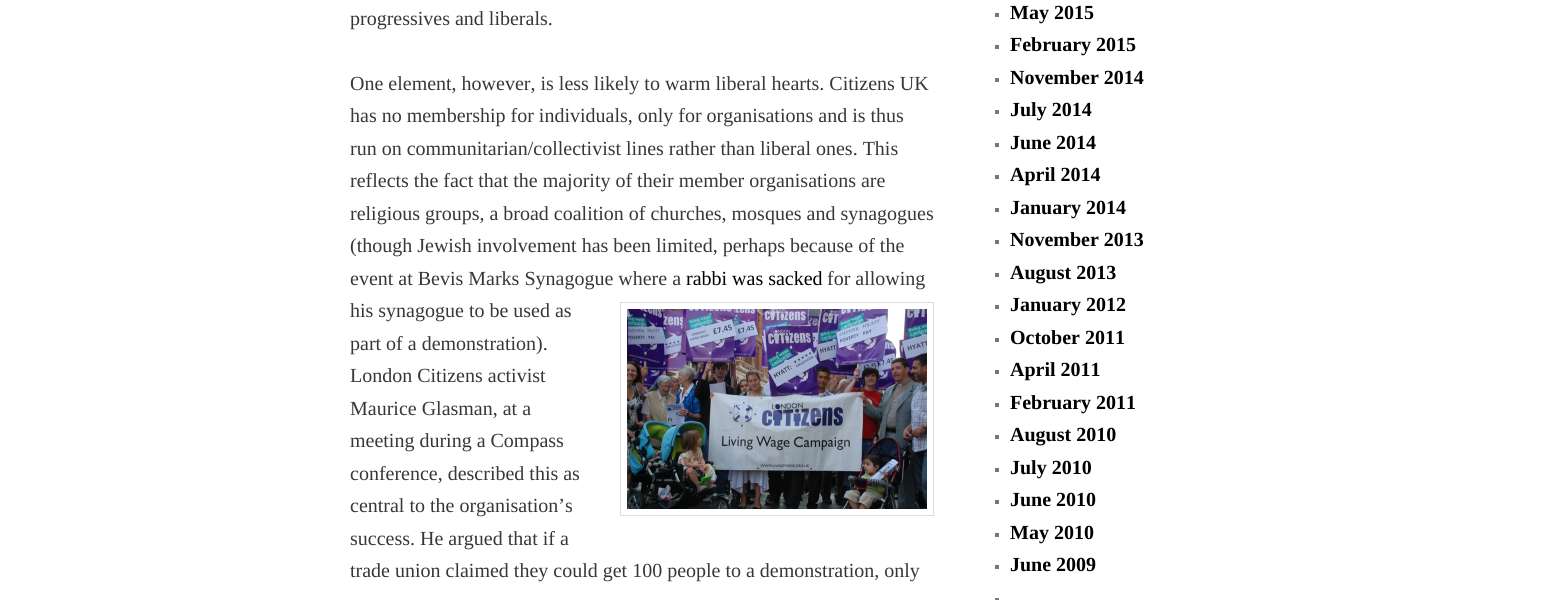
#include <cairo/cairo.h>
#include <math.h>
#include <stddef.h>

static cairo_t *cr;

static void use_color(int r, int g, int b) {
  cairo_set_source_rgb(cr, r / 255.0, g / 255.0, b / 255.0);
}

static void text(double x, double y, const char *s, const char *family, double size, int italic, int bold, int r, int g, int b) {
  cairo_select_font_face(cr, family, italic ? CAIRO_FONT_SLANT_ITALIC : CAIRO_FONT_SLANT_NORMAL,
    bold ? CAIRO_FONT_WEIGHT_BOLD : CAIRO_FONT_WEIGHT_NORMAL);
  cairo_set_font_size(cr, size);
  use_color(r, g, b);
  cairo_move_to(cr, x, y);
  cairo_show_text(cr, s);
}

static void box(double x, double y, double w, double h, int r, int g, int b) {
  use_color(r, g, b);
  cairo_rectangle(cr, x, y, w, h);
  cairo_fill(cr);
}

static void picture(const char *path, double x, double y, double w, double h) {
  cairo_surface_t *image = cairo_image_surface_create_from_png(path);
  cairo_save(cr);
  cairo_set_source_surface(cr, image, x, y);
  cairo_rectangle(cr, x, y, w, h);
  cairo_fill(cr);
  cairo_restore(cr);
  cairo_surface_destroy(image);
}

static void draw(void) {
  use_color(255, 255, 255);
  cairo_paint(cr);
  cairo_rectangle(cr, 620.5, 302.5, 313, 213);
  use_color(221, 221, 221);
  cairo_set_line_width(cr, 1);
  cairo_stroke(cr);
  picture("img_01.png", 627, 309, 300, 200);
  box(995, 13, 4, 4, 119, 119, 119);
  box(995, 45, 4, 4, 119, 119, 119);
  box(995, 78, 4, 4, 119, 119, 119);
  box(995, 110, 4, 4, 119, 119, 119);
  box(995, 143, 4, 4, 119, 119, 119);
  box(995, 175, 4, 4, 119, 119, 119);
  box(995, 208, 4, 4, 119, 119, 119);
  box(995, 240, 4, 4, 119, 119, 119);
  box(995, 273, 4, 4, 119, 119, 119);
  box(995, 305, 4, 4, 119, 119, 119);
  box(995, 338, 4, 4, 119, 119, 119);
  box(995, 370, 4, 4, 119, 119, 119);
  box(995, 403, 4, 4, 119, 119, 119);
  box(995, 435, 4, 4, 119, 119, 119);
  box(995, 468, 4, 4, 119, 119, 119);
  box(995, 500, 4, 4, 119, 119, 119);
  box(995, 533, 4, 4, 119, 119, 119);
  box(995, 565, 4, 4, 119, 119, 119);
  box(995, 598, 4, 2, 119, 119, 119);
  text(350, 25, "progressives and liberals.", "Liberation Serif", 20, 0, 0, 55, 55, 55);
  text(350, 90, "One element, however, is less likely to warm liberal hearts. Citizens UK", "Liberation Serif", 20, 0, 0, 55, 55, 55);
  text(350, 122, "has no membership for individuals, only for organisations and is thus", "Liberation Serif", 20, 0, 0, 55, 55, 55);
  text(350, 155, "run on communitarian/collectivist lines rather than liberal ones. This", "Liberation Serif", 20, 0, 0, 55, 55, 55);
  text(350, 187, "reflects the fact that the majority of their member organisations are", "Liberation Serif", 20, 0, 0, 55, 55, 55);
  text(350, 220, "religious groups, a broad coalition of churches, mosques and synagogues", "Liberation Serif", 20, 0, 0, 55, 55, 55);
  text(350, 252, "(though Jewish involvement has been limited, perhaps because of the", "Liberation Serif", 20, 0, 0, 55, 55, 55);
  text(350, 285, "event at Bevis Marks Synagogue where a", "Liberation Serif", 20, 0, 0, 55, 55, 55);
  text(686, 285, "rabbi was sacked", "Liberation Serif", 20, 0, 0, 0, 0, 0);
  text(827, 285, "for allowing", "Liberation Serif", 20, 0, 0, 55, 55, 55);
  text(350, 317, "his synagogue to be used as", "Liberation Serif", 20, 0, 0, 55, 55, 55);
  text(350, 350, "part of a demonstration).", "Liberation Serif", 20, 0, 0, 55, 55, 55);
  text(350, 382, "London Citizens activist", "Liberation Serif", 20, 0, 0, 55, 55, 55);
  text(350, 415, "Maurice Glasman, at a", "Liberation Serif", 20, 0, 0, 55, 55, 55);
  text(350, 447, "meeting during a Compass", "Liberation Serif", 20, 0, 0, 55, 55, 55);
  text(350, 480, "conference, described this as", "Liberation Serif", 20, 0, 0, 55, 55, 55);
  text(350, 512, "central to the organisation’s", "Liberation Serif", 20, 0, 0, 55, 55, 55);
  text(350, 545, "success. He argued that if a", "Liberation Serif", 20, 0, 0, 55, 55, 55);
  text(350, 577, "trade union claimed they could get 100 people to a demonstration, only", "Liberation Serif", 20, 0, 0, 55, 55, 55);
  text(1010, 19, "May 2015", "Liberation Serif", 20, 0, 1, 0, 0, 0);
  text(1010, 51, "February 2015", "Liberation Serif", 20, 0, 1, 0, 0, 0);
  text(1010, 84, "November 2014", "Liberation Serif", 20, 0, 1, 0, 0, 0);
  text(1010, 116, "July 2014", "Liberation Serif", 20, 0, 1, 0, 0, 0);
  text(1010, 149, "June 2014", "Liberation Serif", 20, 0, 1, 0, 0, 0);
  text(1010, 181, "April 2014", "Liberation Serif", 20, 0, 1, 0, 0, 0);
  text(1010, 214, "January 2014", "Liberation Serif", 20, 0, 1, 0, 0, 0);
  text(1010, 246, "November 2013", "Liberation Serif", 20, 0, 1, 0, 0, 0);
  text(1010, 279, "August 2013", "Liberation Serif", 20, 0, 1, 0, 0, 0);
  text(1010, 311, "January 2012", "Liberation Serif", 20, 0, 1, 0, 0, 0);
  text(1010, 344, "October 2011", "Liberation Serif", 20, 0, 1, 0, 0, 0);
  text(1010, 376, "April 2011", "Liberation Serif", 20, 0, 1, 0, 0, 0);
  text(1010, 409, "February 2011", "Liberation Serif", 20, 0, 1, 0, 0, 0);
  text(1010, 441, "August 2010", "Liberation Serif", 20, 0, 1, 0, 0, 0);
  text(1010, 474, "July 2010", "Liberation Serif", 20, 0, 1, 0, 0, 0);
  text(1010, 506, "June 2010", "Liberation Serif", 20, 0, 1, 0, 0, 0);
  text(1010, 539, "May 2010", "Liberation Serif", 20, 0, 1, 0, 0, 0);
  text(1010, 571, "June 2009", "Liberation Serif", 20, 0, 1, 0, 0, 0);
}

int main(void) {
  cairo_surface_t *surface = cairo_image_surface_create(CAIRO_FORMAT_RGB24, 1547, 600);
  cr = cairo_create(surface);
  cairo_font_options_t *options = cairo_font_options_create();
  cairo_font_options_set_hint_metrics(options, CAIRO_HINT_METRICS_OFF);
  cairo_font_options_set_hint_style(options, CAIRO_HINT_STYLE_NONE);
  cairo_set_font_options(cr, options);
  cairo_set_miter_limit(cr, 4);
  draw();
  cairo_surface_write_to_png(surface, "out.png");
  cairo_font_options_destroy(options);
  cairo_destroy(cr);
  cairo_surface_destroy(surface);
  return 0;
}
